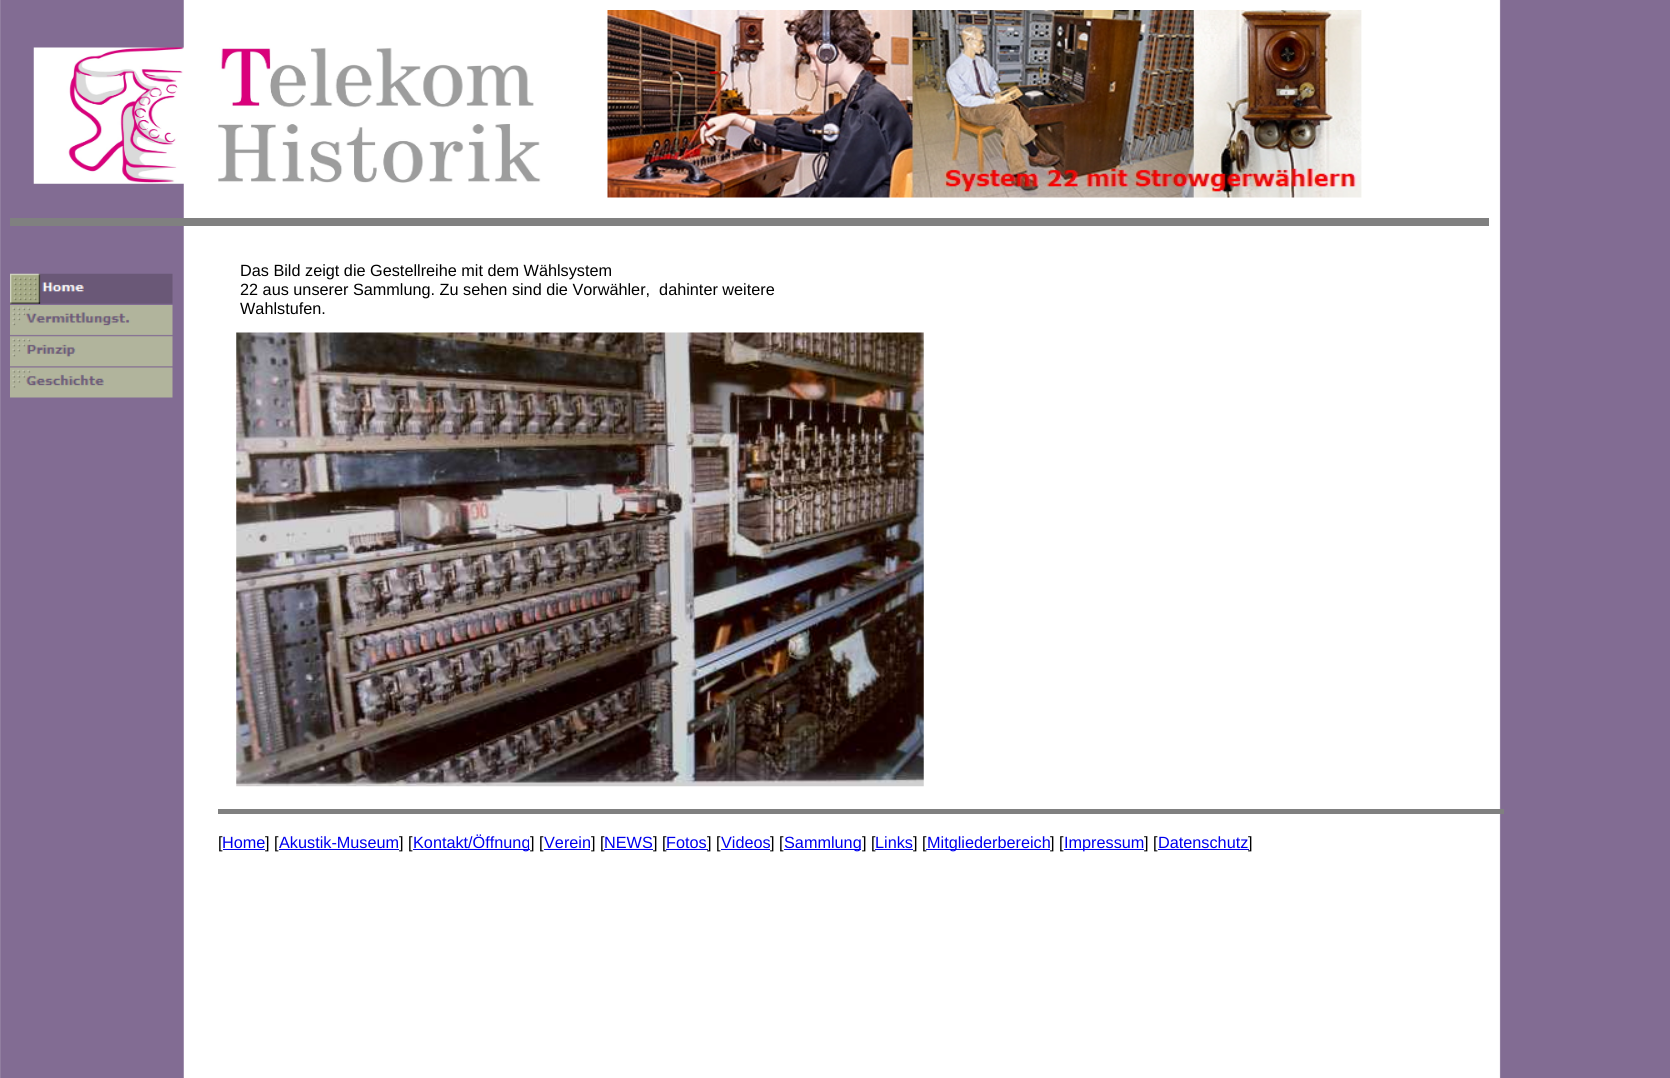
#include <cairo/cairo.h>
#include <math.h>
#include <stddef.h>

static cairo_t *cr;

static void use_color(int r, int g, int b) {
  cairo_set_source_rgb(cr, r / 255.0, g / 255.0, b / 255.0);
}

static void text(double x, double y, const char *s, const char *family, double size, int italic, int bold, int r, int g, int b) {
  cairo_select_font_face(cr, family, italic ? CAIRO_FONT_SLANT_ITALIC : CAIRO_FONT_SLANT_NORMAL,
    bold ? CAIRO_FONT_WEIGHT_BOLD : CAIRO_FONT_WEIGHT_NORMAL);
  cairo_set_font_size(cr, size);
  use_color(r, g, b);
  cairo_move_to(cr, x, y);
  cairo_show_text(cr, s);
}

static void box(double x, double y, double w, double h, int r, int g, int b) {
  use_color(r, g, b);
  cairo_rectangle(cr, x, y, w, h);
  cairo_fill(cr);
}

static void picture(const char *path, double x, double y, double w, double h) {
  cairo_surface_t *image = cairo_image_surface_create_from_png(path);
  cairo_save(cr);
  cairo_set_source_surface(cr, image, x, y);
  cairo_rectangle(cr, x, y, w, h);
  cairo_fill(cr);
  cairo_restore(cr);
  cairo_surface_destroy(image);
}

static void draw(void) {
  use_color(255, 255, 255);
  cairo_paint(cr);
  picture("img_01.png", 0, 0, 1670, 1078);
  picture("img_02.png", 33, 47, 508, 137);
  picture("img_03.png", 607, 10, 755, 188);
  box(10, 218, 1479, 8, 128, 128, 128);
  picture("img_04.png", 10, 273, 163, 31);
  picture("img_05.png", 10, 305, 163, 31);
  picture("img_06.png", 10, 336, 163, 31);
  picture("img_07.png", 10, 367, 163, 31);
  picture("img_08.png", 236, 332, 688, 455);
  box(218, 809, 1286, 5, 128, 128, 128);
  box(223, 849, 42, 1, 0, 0, 238);
  box(279, 849, 120, 1, 0, 0, 238);
  box(413, 849, 117, 1, 0, 0, 238);
  box(544, 849, 46, 1, 0, 0, 238);
  box(604, 849, 49, 1, 0, 0, 238);
  box(721, 849, 49, 1, 0, 0, 238);
  box(784, 849, 77, 1, 0, 0, 238);
  box(875, 849, 38, 1, 0, 0, 238);
  box(1064, 849, 80, 1, 0, 0, 238);
  box(1158, 849, 91, 1, 0, 0, 238);
  text(240, 276, "Das Bild zeigt die Gestellreihe mit dem Wählsystem", "Liberation Sans", 16.25, 0, 0, 0, 0, 0);
  text(240, 295, "22 aus unserer Sammlung. Zu sehen sind die Vorwähler,  dahinter weitere", "Liberation Sans", 16.25, 0, 0, 0, 0, 0);
  text(240, 314, "Wahlstufen.", "Liberation Sans", 16.25, 0, 0, 0, 0, 0);
  text(218, 848, "[", "Liberation Sans", 16.25, 0, 0, 0, 0, 0);
  text(222, 848, "Home", "Liberation Sans", 16.25, 0, 0, 0, 0, 238);
  text(265, 848, "] [", "Liberation Sans", 16.25, 0, 0, 0, 0, 0);
  text(279, 848, "Akustik-Museum", "Liberation Sans", 16.25, 0, 0, 0, 0, 238);
  text(399, 848, "] [", "Liberation Sans", 16.25, 0, 0, 0, 0, 0);
  text(413, 848, "Kontakt/Öffnung", "Liberation Sans", 16.25, 0, 0, 0, 0, 238);
  text(530, 848, "] [", "Liberation Sans", 16.25, 0, 0, 0, 0, 0);
  text(544, 848, "Verein", "Liberation Sans", 16.25, 0, 0, 0, 0, 238);
  text(591, 848, "] [", "Liberation Sans", 16.25, 0, 0, 0, 0, 0);
  text(604, 848, "NEWS", "Liberation Sans", 16.25, 0, 0, 0, 0, 238);
  text(653, 848, "] [", "Liberation Sans", 16.25, 0, 0, 0, 0, 0);
  text(666, 848, "Fotos", "Liberation Sans", 16.25, 0, 0, 0, 0, 238);
  box(666, 849, 42, 1, 0, 0, 238);
  text(707, 848, "] [", "Liberation Sans", 16.25, 0, 0, 0, 0, 0);
  text(721, 848, "Videos", "Liberation Sans", 16.25, 0, 0, 0, 0, 238);
  text(770, 848, "] [", "Liberation Sans", 16.25, 0, 0, 0, 0, 0);
  text(784, 848, "Sammlung", "Liberation Sans", 16.25, 0, 0, 0, 0, 238);
  text(862, 848, "] [", "Liberation Sans", 16.25, 0, 0, 0, 0, 0);
  text(875, 848, "Links", "Liberation Sans", 16.25, 0, 0, 0, 0, 238);
  text(913, 848, "] [", "Liberation Sans", 16.25, 0, 0, 0, 0, 0);
  box(926, 849, 124, 1, 0, 0, 238);
  text(927, 848, "Mitgliederbereich", "Liberation Sans", 16.25, 0, 0, 0, 0, 238);
  text(1050, 848, "] [", "Liberation Sans", 16.25, 0, 0, 0, 0, 0);
  text(1064, 848, "Impressum", "Liberation Sans", 16.25, 0, 0, 0, 0, 238);
  text(1144, 848, "] [", "Liberation Sans", 16.25, 0, 0, 0, 0, 0);
  text(1158, 848, "Datenschutz", "Liberation Sans", 16.25, 0, 0, 0, 0, 238);
  text(1248, 848, "]", "Liberation Sans", 16.25, 0, 0, 0, 0, 0);
}

int main(void) {
  cairo_surface_t *surface = cairo_image_surface_create(CAIRO_FORMAT_RGB24, 1670, 1078);
  cr = cairo_create(surface);
  cairo_font_options_t *options = cairo_font_options_create();
  cairo_font_options_set_hint_metrics(options, CAIRO_HINT_METRICS_OFF);
  cairo_font_options_set_hint_style(options, CAIRO_HINT_STYLE_NONE);
  cairo_set_font_options(cr, options);
  cairo_set_miter_limit(cr, 4);
  draw();
  cairo_surface_write_to_png(surface, "out.png");
  cairo_font_options_destroy(options);
  cairo_destroy(cr);
  cairo_surface_destroy(surface);
  return 0;
}
